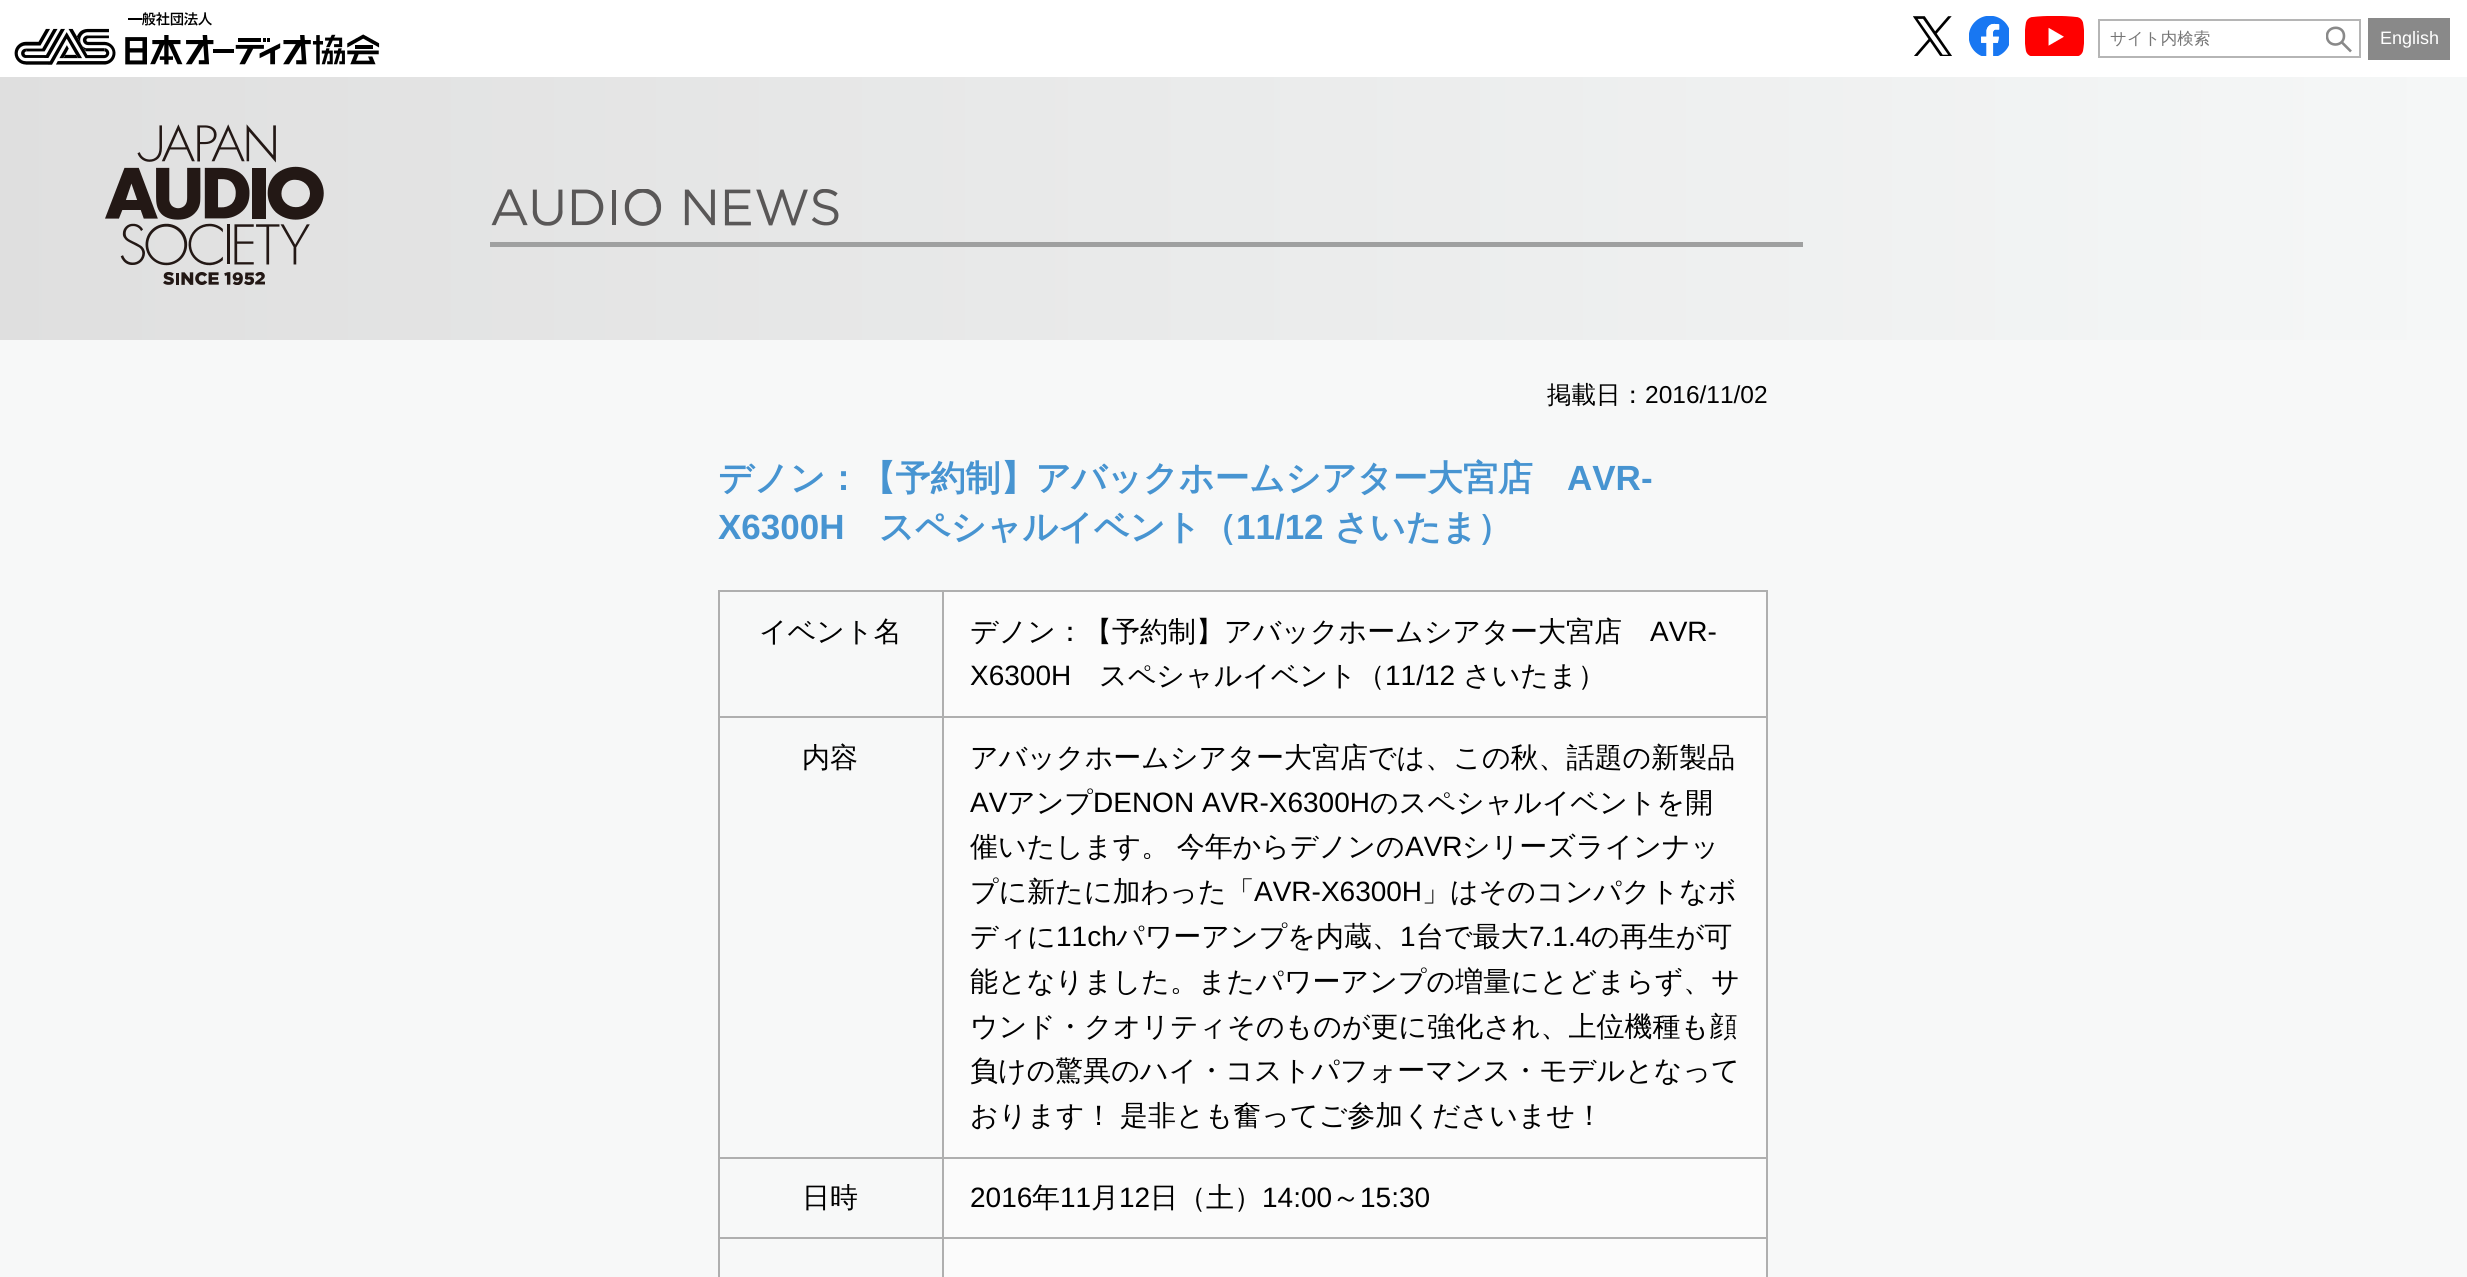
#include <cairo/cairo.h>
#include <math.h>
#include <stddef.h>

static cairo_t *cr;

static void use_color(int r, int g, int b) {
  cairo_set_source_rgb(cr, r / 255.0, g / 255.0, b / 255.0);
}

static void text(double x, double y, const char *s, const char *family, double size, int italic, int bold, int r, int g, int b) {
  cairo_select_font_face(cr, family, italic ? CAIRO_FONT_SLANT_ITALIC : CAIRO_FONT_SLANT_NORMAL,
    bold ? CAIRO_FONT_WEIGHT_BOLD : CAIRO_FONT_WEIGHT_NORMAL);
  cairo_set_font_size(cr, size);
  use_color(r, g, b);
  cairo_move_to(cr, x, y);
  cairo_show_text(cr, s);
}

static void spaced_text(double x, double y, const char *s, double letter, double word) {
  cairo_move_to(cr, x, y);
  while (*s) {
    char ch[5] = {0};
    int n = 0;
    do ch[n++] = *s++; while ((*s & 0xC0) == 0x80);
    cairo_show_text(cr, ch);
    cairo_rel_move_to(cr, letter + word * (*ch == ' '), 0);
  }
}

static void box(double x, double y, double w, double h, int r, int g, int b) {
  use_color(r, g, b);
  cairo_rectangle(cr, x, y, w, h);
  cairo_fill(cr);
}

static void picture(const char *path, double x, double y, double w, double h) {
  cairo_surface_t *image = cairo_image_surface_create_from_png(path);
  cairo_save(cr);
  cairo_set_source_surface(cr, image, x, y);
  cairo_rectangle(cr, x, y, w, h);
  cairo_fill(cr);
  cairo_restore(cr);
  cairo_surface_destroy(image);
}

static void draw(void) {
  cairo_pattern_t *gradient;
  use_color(255, 255, 255);
  cairo_paint(cr);
  picture("img_01.png", 14, 12, 366, 53);
  picture("img_02.png", 1913, 16, 39, 40);
  picture("img_03.png", 1969, 16, 40, 40);
  picture("img_04.png", 2025, 16, 59, 40);
  cairo_rectangle(cr, 2099, 20, 261, 37);
  use_color(181, 181, 181);
  cairo_stroke(cr);
  cairo_save(cr);
  cairo_rectangle(cr, 2326, 26, 26, 27);
  cairo_clip(cr);
  cairo_new_path(cr);
  cairo_move_to(cr, 2344, 36);
  cairo_curve_to(cr, 2344, 47, 2327.5, 47.5, 2327, 36.5);
  cairo_curve_to(cr, 2326.5, 25.5, 2344, 24.5, 2344, 36);
  cairo_close_path(cr);
  use_color(137, 137, 137);
  cairo_set_line_width(cr, 2.6);
  cairo_stroke(cr);
  cairo_restore(cr);
  cairo_new_path(cr);
  cairo_move_to(cr, 2341.5, 42);
  cairo_line_to(cr, 2351, 51.5);
  use_color(137, 137, 137);
  cairo_set_line_width(cr, 2.6);
  cairo_stroke(cr);
  box(2368, 18, 82, 42, 137, 137, 137);
  gradient = cairo_pattern_create_linear(0, 208, 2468, 208);
  cairo_pattern_add_color_stop_rgba(gradient, 0, 0.875, 0.875, 0.875, 1);
  cairo_pattern_add_color_stop_rgba(gradient, 1, 0.961, 0.969, 0.969, 1);
  cairo_set_source(cr, gradient);
  cairo_pattern_destroy(gradient);
  cairo_rectangle(cr, 0, 77, 2467, 263);
  cairo_fill(cr);
  box(490, 242, 1313, 5, 159, 160, 160);
  picture("img_05.png", 491, 189, 348, 37);
  picture("img_06.png", 105, 124, 219, 161);
  box(0, 340, 2467, 937, 247, 248, 248);
  box(942, 590, 826, 2, 175, 175, 175);
  box(942, 716, 826, 2, 175, 175, 175);
  box(942, 1157, 826, 2, 175, 175, 175);
  box(942, 1237, 826, 2, 175, 175, 175);
  box(942, 1237, 2, 40, 175, 175, 175);
  box(718, 1237, 225, 2, 175, 175, 175);
  box(942, 1157, 2, 82, 175, 175, 175);
  box(718, 1157, 225, 2, 175, 175, 175);
  box(942, 716, 2, 443, 175, 175, 175);
  box(718, 716, 225, 2, 175, 175, 175);
  box(942, 590, 2, 128, 175, 175, 175);
  box(718, 590, 225, 2, 175, 175, 175);
  box(718, 1237, 2, 40, 175, 175, 175);
  box(718, 1157, 2, 82, 175, 175, 175);
  box(718, 716, 2, 443, 175, 175, 175);
  box(718, 590, 2, 128, 175, 175, 175);
  box(944, 592, 822, 124, 251, 251, 251);
  box(1766, 1237, 2, 40, 175, 175, 175);
  box(1766, 1157, 2, 82, 175, 175, 175);
  box(1766, 716, 2, 443, 175, 175, 175);
  box(1766, 590, 2, 128, 175, 175, 175);
  box(944, 718, 822, 439, 251, 251, 251);
  box(944, 1159, 822, 78, 251, 251, 251);
  box(944, 1239, 822, 38, 251, 251, 251);
  text(2110, 44, "サイト内検索", "WenQuanYi Zen Hei Medium", 16.5, 0, 0, 117, 117, 117);
  text(2380, 44, "English", "Liberation Sans", 18, 0, 0, 255, 255, 255);
  text(1547, 403, "掲載日：", "WenQuanYi Zen Hei Medium", 24.5, 0, 0, 0, 0, 0);
  text(1645, 403, "2016/11/02", "Liberation Sans", 24.5, 0, 0, 0, 0, 0);
  text(718, 490, "デノン：【予約制】アバックホームシアター大宮店", "WenQuanYi Zen Hei", 35, 0, 1, 71, 148, 209);
  text(1567, 490, "AVR-", "Liberation Sans", 35, 0, 1, 71, 148, 209);
  text(718, 539, "X6300H", "Liberation Sans", 35, 0, 1, 71, 148, 209);
  text(879, 539, "スペシャルイベント（", "WenQuanYi Zen Hei", 35, 0, 1, 71, 148, 209);
  text(1236, 539, "11/12", "Liberation Sans", 35, 0, 1, 71, 148, 209);
  text(1334, 539, "さいたま）", "WenQuanYi Zen Hei", 35, 0, 1, 71, 148, 209);
  text(759, 641, "イベント名", "WenQuanYi Zen Hei Medium", 28, 0, 0, 0, 0, 0);
  text(970, 641, "デノン：【予約制】アバックホームシアター大宮店", "WenQuanYi Zen Hei Medium", 28, 0, 0, 0, 0, 0);
  text(1650, 641, "AVR-", "Liberation Sans", 28, 0, 0, 0, 0, 0);
  text(970, 685, "X6300H", "Liberation Sans", 28, 0, 0, 0, 0, 0);
  text(1099, 685, "スペシャルイベント（", "WenQuanYi Zen Hei Medium", 28, 0, 0, 0, 0, 0);
  text(1385, 685, "11/12", "Liberation Sans", 28, 0, 0, 0, 0, 0);
  text(1463, 685, "さいたま）", "WenQuanYi Zen Hei Medium", 28, 0, 0, 0, 0, 0);
  text(802, 767, "内容", "WenQuanYi Zen Hei Medium", 28, 0, 0, 0, 0, 0);
  text(970, 767, "アバックホームシアター大宮店では、この秋、話題の新製品", "WenQuanYi Zen Hei Medium", 28, 0, 0, 0, 0, 0);
  text(970, 812, "AV", "Liberation Sans", 28, 0, 0, 0, 0, 0);
  text(1007, 812, "アンプ", "WenQuanYi Zen Hei Medium", 28, 0, 0, 0, 0, 0);
  text(1093, 812, "DENON AVR-X6300H", "Liberation Sans", 28, 0, 0, 0, 0, 0);
  text(1370, 812, "のスペシャルイベントを開", "WenQuanYi Zen Hei Medium", 28, 0, 0, 0, 0, 0);
  spaced_text(970, 856, "催いたします。 今年からデノンの", 0, -1);
  text(1405, 856, "AVR", "Liberation Sans", 28, 0, 0, 0, 0, 0);
  text(1462, 856, "シリーズラインナッ", "WenQuanYi Zen Hei Medium", 28, 0, 0, 0, 0, 0);
  text(970, 901, "プに新たに加わった「", "WenQuanYi Zen Hei Medium", 28, 0, 0, 0, 0, 0);
  text(1254, 901, "AVR-X6300H", "Liberation Sans", 28, 0, 0, 0, 0, 0);
  text(1422, 901, "」はそのコンパクトなボ", "WenQuanYi Zen Hei Medium", 28, 0, 0, 0, 0, 0);
  text(970, 946, "ディに", "WenQuanYi Zen Hei Medium", 28, 0, 0, 0, 0, 0);
  text(1056, 946, "11ch", "Liberation Sans", 28, 0, 0, 0, 0, 0);
  text(1116, 946, "パワーアンプを内蔵、", "WenQuanYi Zen Hei Medium", 28, 0, 0, 0, 0, 0);
  text(1400, 946, "1", "Liberation Sans", 28, 0, 0, 0, 0, 0);
  text(1416, 946, "台で最大", "WenQuanYi Zen Hei Medium", 28, 0, 0, 0, 0, 0);
  text(1529, 946, "7.1.4", "Liberation Sans", 28, 0, 0, 0, 0, 0);
  text(1591, 946, "の再生が可", "WenQuanYi Zen Hei Medium", 28, 0, 0, 0, 0, 0);
  text(970, 991, "能となりました。またパワーアンプの増量にとどまらず、サ", "WenQuanYi Zen Hei Medium", 28, 0, 0, 0, 0, 0);
  text(970, 1036, "ウンド・クオリティそのものが更に強化され、上位機種も顔", "WenQuanYi Zen Hei Medium", 28, 0, 0, 0, 0, 0);
  text(970, 1080, "負けの驚異のハイ・コストパフォーマンス・モデルとなって", "WenQuanYi Zen Hei Medium", 28, 0, 0, 0, 0, 0);
  spaced_text(970, 1125, "おります！ 是非とも奮ってご参加くださいませ！", 0, -1);
  text(802, 1207, "日時", "WenQuanYi Zen Hei Medium", 28, 0, 0, 0, 0, 0);
  text(970, 1207, "2016", "Liberation Sans", 28, 0, 0, 0, 0, 0);
  text(1032, 1207, "年", "WenQuanYi Zen Hei Medium", 28, 0, 0, 0, 0, 0);
  text(1060, 1207, "11", "Liberation Sans", 28, 0, 0, 0, 0, 0);
  text(1091, 1207, "月", "WenQuanYi Zen Hei Medium", 28, 0, 0, 0, 0, 0);
  text(1119, 1207, "12", "Liberation Sans", 28, 0, 0, 0, 0, 0);
  text(1150, 1207, "日（土）", "WenQuanYi Zen Hei Medium", 28, 0, 0, 0, 0, 0);
  text(1262, 1207, "14:00", "Liberation Sans", 28, 0, 0, 0, 0, 0);
  text(1332, 1207, "～", "WenQuanYi Zen Hei Medium", 28, 0, 0, 0, 0, 0);
  text(1360, 1207, "15:30", "Liberation Sans", 28, 0, 0, 0, 0, 0);
}

int main(void) {
  cairo_surface_t *surface = cairo_image_surface_create(CAIRO_FORMAT_RGB24, 2467, 1277);
  cr = cairo_create(surface);
  cairo_font_options_t *options = cairo_font_options_create();
  cairo_font_options_set_hint_metrics(options, CAIRO_HINT_METRICS_OFF);
  cairo_font_options_set_hint_style(options, CAIRO_HINT_STYLE_NONE);
  cairo_set_font_options(cr, options);
  cairo_set_miter_limit(cr, 4);
  draw();
  cairo_surface_write_to_png(surface, "out.png");
  cairo_font_options_destroy(options);
  cairo_destroy(cr);
  cairo_surface_destroy(surface);
  return 0;
}
